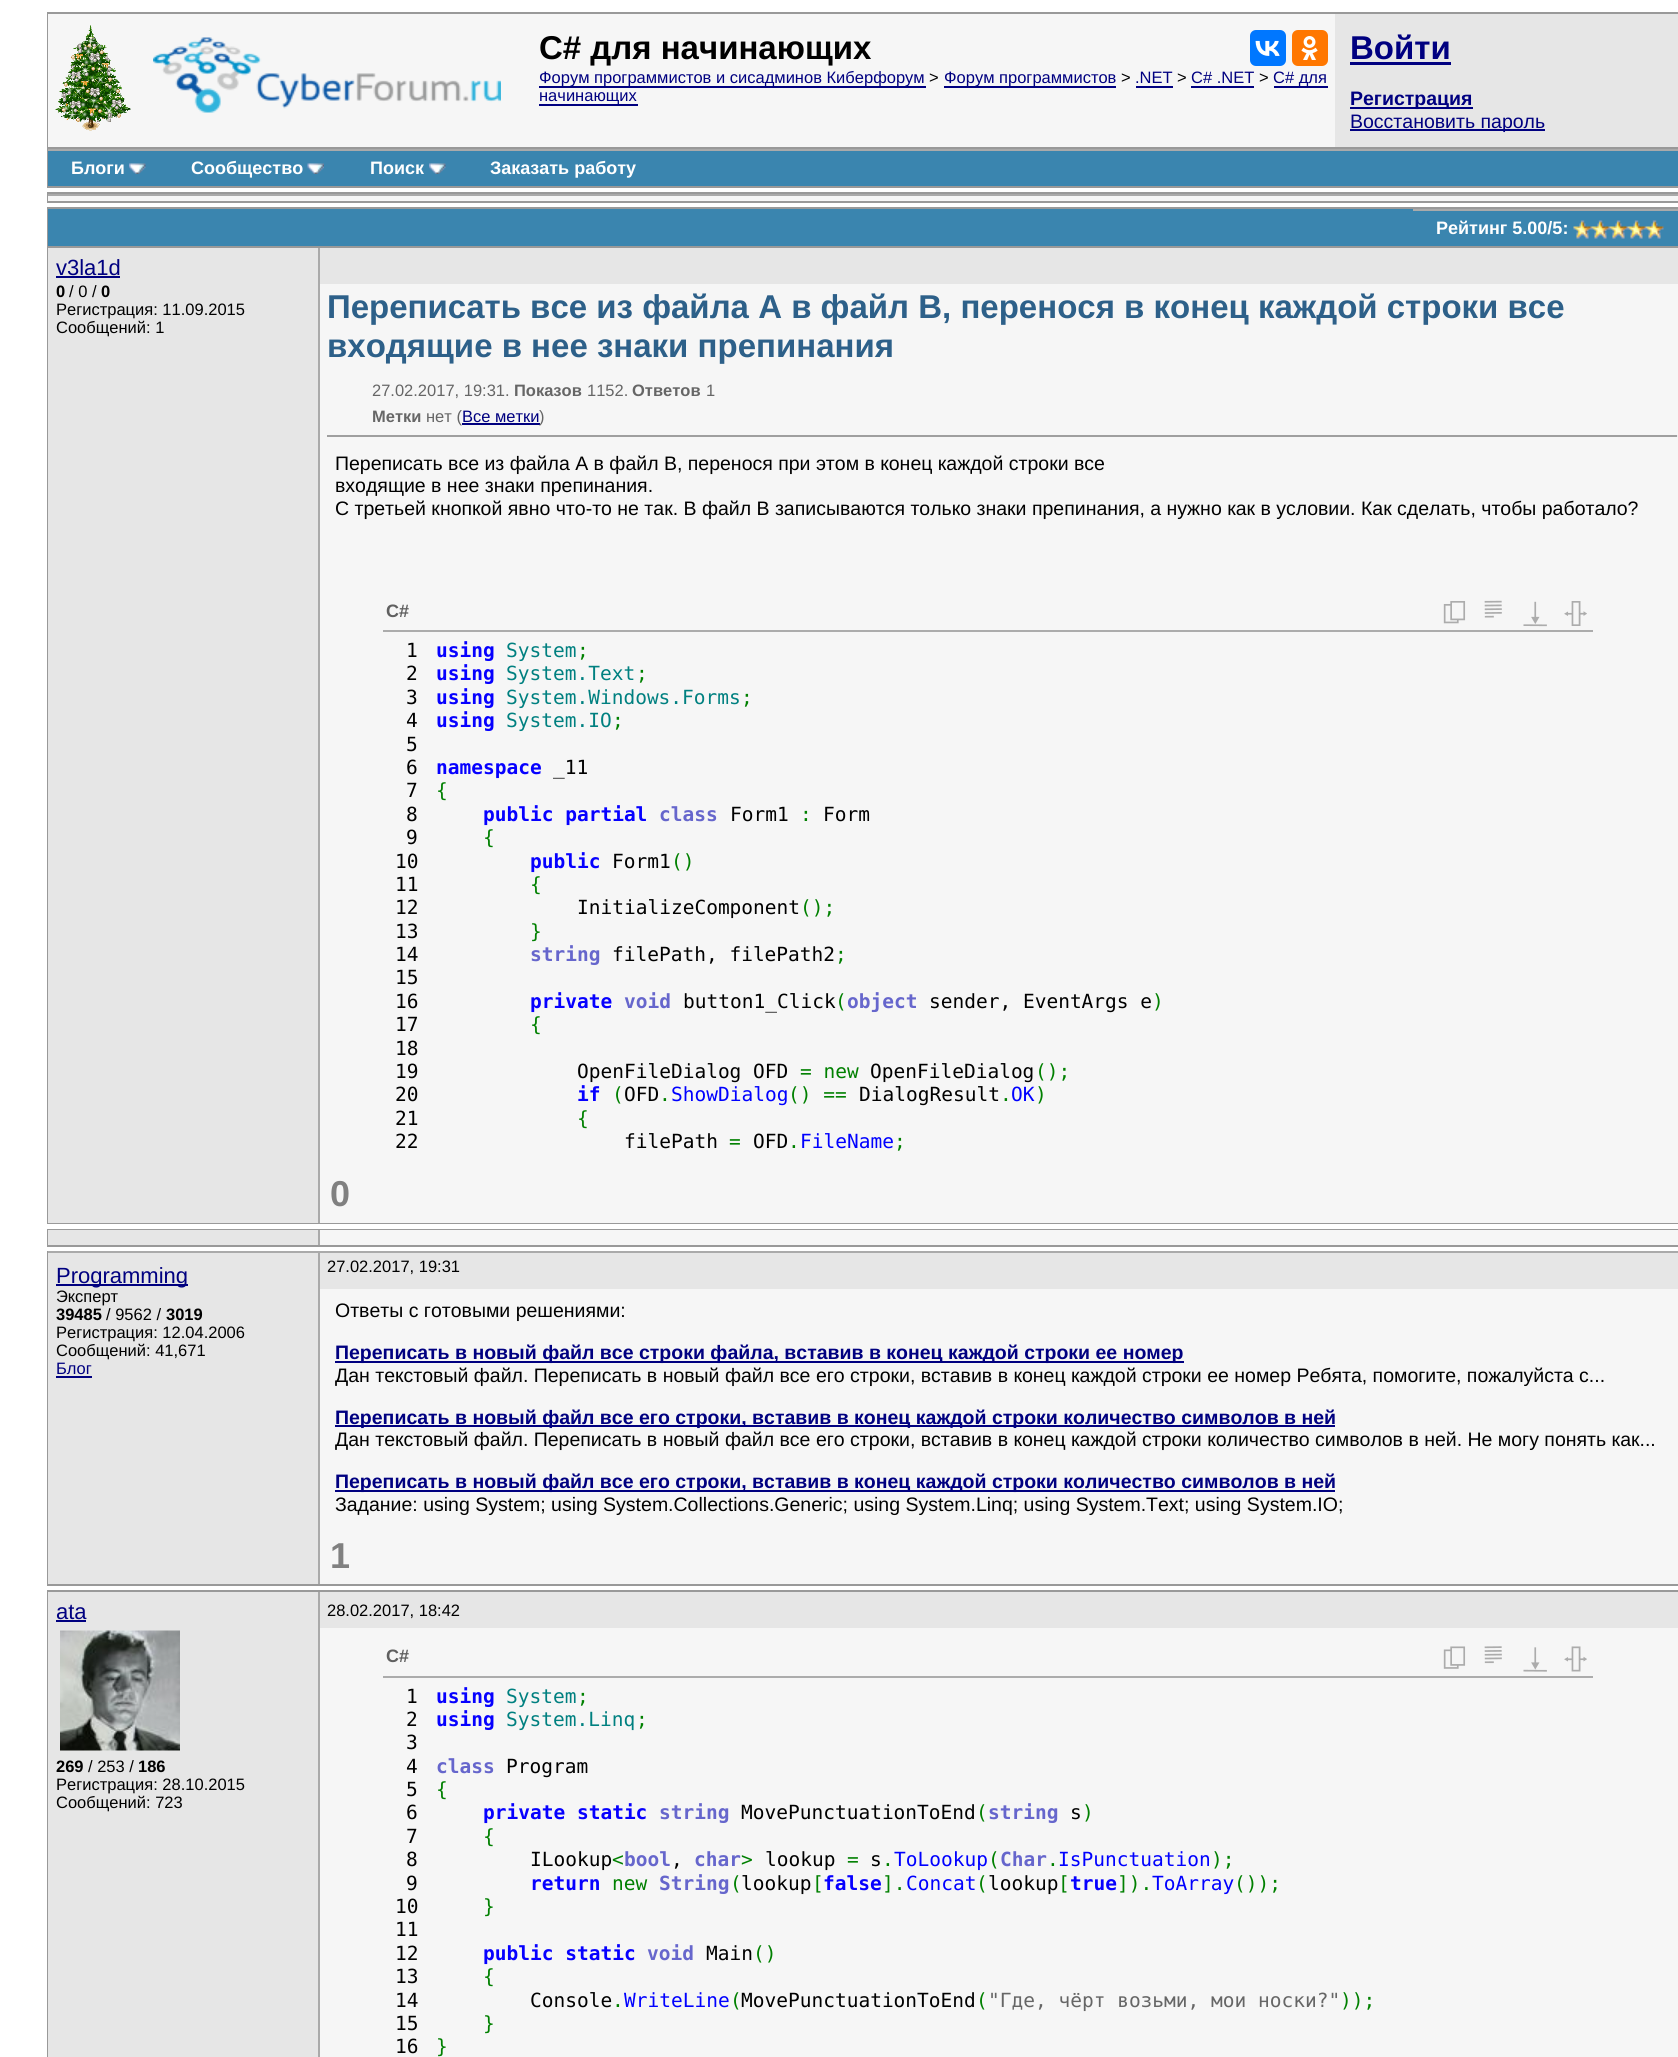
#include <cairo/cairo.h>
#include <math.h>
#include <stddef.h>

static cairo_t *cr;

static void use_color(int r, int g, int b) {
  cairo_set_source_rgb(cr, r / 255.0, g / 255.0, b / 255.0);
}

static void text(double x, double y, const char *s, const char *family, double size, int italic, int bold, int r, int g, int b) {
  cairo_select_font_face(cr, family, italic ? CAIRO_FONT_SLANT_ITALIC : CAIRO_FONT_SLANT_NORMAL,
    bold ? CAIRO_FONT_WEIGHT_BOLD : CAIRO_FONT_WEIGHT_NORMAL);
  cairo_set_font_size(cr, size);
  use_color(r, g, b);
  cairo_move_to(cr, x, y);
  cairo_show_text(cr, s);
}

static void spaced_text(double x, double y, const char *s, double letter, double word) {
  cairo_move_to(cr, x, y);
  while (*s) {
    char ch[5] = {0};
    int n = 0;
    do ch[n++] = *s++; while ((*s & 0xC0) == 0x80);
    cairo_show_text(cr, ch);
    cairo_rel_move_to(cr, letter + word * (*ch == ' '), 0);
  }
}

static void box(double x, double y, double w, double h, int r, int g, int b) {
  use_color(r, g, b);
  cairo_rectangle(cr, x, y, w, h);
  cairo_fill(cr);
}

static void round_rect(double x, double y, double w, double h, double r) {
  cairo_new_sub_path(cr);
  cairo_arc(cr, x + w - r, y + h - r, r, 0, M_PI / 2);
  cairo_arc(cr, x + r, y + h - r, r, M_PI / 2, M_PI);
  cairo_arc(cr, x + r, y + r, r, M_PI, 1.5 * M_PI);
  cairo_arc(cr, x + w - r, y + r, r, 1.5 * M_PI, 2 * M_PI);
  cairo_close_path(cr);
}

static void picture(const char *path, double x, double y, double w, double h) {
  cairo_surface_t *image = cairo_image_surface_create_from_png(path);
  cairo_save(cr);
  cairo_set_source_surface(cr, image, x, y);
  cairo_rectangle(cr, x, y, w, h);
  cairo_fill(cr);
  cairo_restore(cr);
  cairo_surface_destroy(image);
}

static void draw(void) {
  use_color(255, 255, 255);
  cairo_paint(cr);
  cairo_rectangle(cr, 48, 13, 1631, 135);
  use_color(153, 153, 153);
  cairo_stroke(cr);
  box(48, 14, 1287, 133, 246, 246, 246);
  picture("img_01.png", 55, 25, 76, 106);
  box(1335, 14, 343, 133, 230, 230, 230);
  box(1350, 62, 101, 3, 0, 0, 128);
  box(1350, 107, 123, 2, 0, 0, 128);
  box(1350, 129, 195, 2, 0, 0, 128);
  picture("img_02.png", 153, 37, 348, 76);
  use_color(0, 119, 255);
  round_rect(1250, 30, 36, 36, 6);
  cairo_fill(cr);
  picture("img_03.png", 1255, 40, 25, 16);
  use_color(255, 119, 0);
  round_rect(1292, 30, 36, 36, 6);
  cairo_fill(cr);
  picture("img_04.png", 1301, 36, 17, 24);
  box(539, 86, 387, 2, 0, 0, 128);
  box(944, 86, 172, 2, 0, 0, 128);
  box(1136, 86, 37, 2, 0, 0, 128);
  box(1191, 86, 63, 2, 0, 0, 128);
  box(1274, 86, 54, 2, 0, 0, 128);
  box(539, 104, 99, 2, 0, 0, 128);
  box(47, 186, 1631, 2, 153, 153, 153);
  box(47, 149, 2, 39, 153, 153, 153);
  box(48, 151, 1630, 35, 58, 133, 175);
  box(48, 149, 1630, 2, 170, 170, 170);
  picture("img_05.png", 129, 163, 17, 11);
  picture("img_06.png", 307, 163, 17, 11);
  picture("img_07.png", 429, 163, 17, 11);
  cairo_rectangle(cr, 48, 193, 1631, 9);
  use_color(153, 153, 153);
  cairo_stroke(cr);
  box(48, 196, 1630, 5, 246, 246, 246);
  box(48, 194, 1630, 2, 170, 170, 170);
  box(47, 207, 1631, 2, 153, 153, 153);
  box(47, 207, 2, 39, 153, 153, 153);
  box(48, 209, 1365, 37, 58, 133, 175);
  box(1413, 211, 265, 35, 58, 133, 175);
  box(1413, 209, 265, 2, 170, 170, 170);
  picture("img_08.png", 1573, 220, 91, 19);
  cairo_rectangle(cr, 48, 247, 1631, 976);
  use_color(153, 153, 153);
  cairo_stroke(cr);
  box(48, 248, 270, 975, 230, 230, 230);
  box(318, 248, 2, 975, 170, 170, 170);
  box(56, 276, 64, 2, 0, 0, 128);
  box(320, 248, 1358, 36, 230, 230, 230);
  box(320, 284, 1358, 939, 246, 246, 246);
  box(462, 423, 78, 2, 0, 0, 128);
  box(327, 435, 1351, 2, 159, 159, 159);
  box(1677, 435, 1, 2, 238, 238, 238);
  box(383, 630, 1210, 2, 172, 172, 172);
  picture("img_09.png", 1443, 600, 144, 27);
  cairo_rectangle(cr, 48, 1230, 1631, 16);
  use_color(153, 153, 153);
  cairo_stroke(cr);
  box(48, 1230, 270, 15, 230, 230, 230);
  box(318, 1230, 2, 15, 170, 170, 170);
  box(320, 1230, 1358, 15, 246, 246, 246);
  box(47, 1584, 1631, 2, 153, 153, 153);
  box(47, 1251, 2, 335, 153, 153, 153);
  box(48, 1253, 270, 331, 230, 230, 230);
  box(48, 1251, 1630, 2, 170, 170, 170);
  box(318, 1251, 2, 333, 170, 170, 170);
  box(56, 1284, 132, 2, 0, 0, 128);
  box(56, 1376, 36, 2, 0, 0, 128);
  box(320, 1253, 1358, 36, 230, 230, 230);
  box(320, 1289, 1358, 295, 246, 246, 246);
  box(335, 1361, 849, 2, 0, 0, 128);
  box(335, 1425, 1000, 2, 0, 0, 128);
  box(335, 1490, 1000, 2, 0, 0, 128);
  cairo_rectangle(cr, 48, 1591, 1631, 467);
  use_color(153, 153, 153);
  cairo_stroke(cr);
  box(48, 1592, 270, 465, 230, 230, 230);
  box(318, 1592, 2, 465, 170, 170, 170);
  box(56, 1620, 30, 2, 0, 0, 128);
  picture("img_10.png", 60, 1630, 120, 121);
  box(320, 1592, 1358, 36, 230, 230, 230);
  box(320, 1628, 1358, 429, 246, 246, 246);
  box(383, 1676, 1210, 2, 172, 172, 172);
  picture("img_11.png", 1443, 1646, 144, 26);
  text(1350, 59, "Войти", "Liberation Sans", 33, 0, 1, 0, 0, 128);
  text(1350, 105, "Регистрация", "Liberation Sans", 19.5, 0, 1, 0, 0, 128);
  text(1350, 128, "Восстановить пароль", "Liberation Sans", 19.5, 0, 0, 0, 0, 128);
  text(539, 59, "C# для начинающих", "Liberation Sans", 33, 0, 1, 0, 0, 0);
  text(539, 83, "Форум программистов и сисадминов Киберфорум", "Liberation Sans", 16.5, 0, 0, 0, 0, 128);
  text(929, 83, ">", "Liberation Sans", 16.5, 0, 0, 0, 0, 0);
  text(944, 83, "Форум программистов", "Liberation Sans", 16.5, 0, 0, 0, 0, 128);
  text(1121, 83, ">", "Liberation Sans", 16.5, 0, 0, 0, 0, 0);
  text(1135, 83, ".NET", "Liberation Sans", 16.5, 0, 0, 0, 0, 128);
  text(1177, 83, ">", "Liberation Sans", 16.5, 0, 0, 0, 0, 0);
  text(1191, 83, "C# .NET", "Liberation Sans", 16.5, 0, 0, 0, 0, 128);
  text(1259, 83, ">", "Liberation Sans", 16.5, 0, 0, 0, 0, 0);
  text(1273, 83, "C# для", "Liberation Sans", 16.5, 0, 0, 0, 0, 128);
  text(539, 101, "начинающих", "Liberation Sans", 16.5, 0, 0, 0, 0, 128);
  text(71, 174, "Блоги", "Liberation Sans", 18, 0, 1, 255, 255, 255);
  text(191, 174, "Сообщество", "Liberation Sans", 18, 0, 1, 255, 255, 255);
  text(370, 174, "Поиск", "Liberation Sans", 18, 0, 1, 255, 255, 255);
  text(490, 174, "Заказать работу", "Liberation Sans", 18, 0, 1, 255, 255, 255);
  text(1436, 234, "Рейтинг 5.00/5:", "Liberation Sans", 18, 0, 1, 255, 255, 255);
  text(56, 275, "v3la1d", "Liberation Sans", 22, 0, 0, 0, 0, 128);
  text(56, 297, "0", "Liberation Sans", 16.5, 0, 1, 0, 0, 0);
  text(69, 297, "/ 0 /", "Liberation Sans", 16.5, 0, 0, 0, 0, 0);
  text(101, 297, "0", "Liberation Sans", 16.5, 0, 1, 0, 0, 0);
  text(56, 315, "Регистрация: 11.09.2015", "Liberation Sans", 16.5, 0, 0, 0, 0, 0);
  text(56, 333, "Сообщений: 1", "Liberation Sans", 16.5, 0, 0, 0, 0, 0);
  text(327, 318, "Переписать все из файла А в файл В, перенося в конец каждой строки все", "Liberation Sans", 33, 0, 1, 45, 96, 137);
  text(327, 357, "входящие в нее знаки препинания", "Liberation Sans", 33, 0, 1, 45, 96, 137);
  text(372, 396, "27.02.2017, 19:31.", "Liberation Sans", 16.5, 0, 0, 102, 102, 102);
  text(514, 396, "Показов", "Liberation Sans", 16.5, 0, 1, 102, 102, 102);
  text(587, 396, "1152.", "Liberation Sans", 16.5, 0, 0, 102, 102, 102);
  text(632, 396, "Ответов", "Liberation Sans", 16.5, 0, 1, 102, 102, 102);
  text(706, 396, "1", "Liberation Sans", 16.5, 0, 0, 102, 102, 102);
  text(372, 422, "Метки", "Liberation Sans", 16.5, 0, 1, 102, 102, 102);
  text(426, 422, "нет (", "Liberation Sans", 16.5, 0, 0, 102, 102, 102);
  text(462, 422, "Все метки", "Liberation Sans", 16.5, 0, 0, 0, 0, 128);
  text(539, 422, ")", "Liberation Sans", 16.5, 0, 0, 102, 102, 102);
  text(335, 470, "Переписать все из файла А в файл В, перенося при этом в конец каждой строки все", "Liberation Sans", 19.5, 0, 0, 0, 0, 0);
  text(335, 492, "входящие в нее знаки препинания.", "Liberation Sans", 19.5, 0, 0, 0, 0, 0);
  text(335, 515, "С третьей кнопкой явно что-то не так. В файл В записываются только знаки препинания, а нужно как в условии. Как сделать, чтобы работало?", "Liberation Sans", 19.5, 0, 0, 0, 0, 0);
  text(386, 617, "C#", "Liberation Sans", 18, 0, 1, 96, 96, 96);
  text(406, 657, "1", "DejaVu Sans Mono", 19.5, 0, 0, 0, 0, 0);
  text(406, 680, "2", "DejaVu Sans Mono", 19.5, 0, 0, 0, 0, 0);
  text(406, 704, "3", "DejaVu Sans Mono", 19.5, 0, 0, 0, 0, 0);
  text(406, 727, "4", "DejaVu Sans Mono", 19.5, 0, 0, 0, 0, 0);
  text(406, 751, "5", "DejaVu Sans Mono", 19.5, 0, 0, 0, 0, 0);
  text(406, 774, "6", "DejaVu Sans Mono", 19.5, 0, 0, 0, 0, 0);
  text(406, 797, "7", "DejaVu Sans Mono", 19.5, 0, 0, 0, 0, 0);
  text(406, 821, "8", "DejaVu Sans Mono", 19.5, 0, 0, 0, 0, 0);
  text(406, 844, "9", "DejaVu Sans Mono", 19.5, 0, 0, 0, 0, 0);
  text(395, 868, "10", "DejaVu Sans Mono", 19.5, 0, 0, 0, 0, 0);
  text(395, 891, "11", "DejaVu Sans Mono", 19.5, 0, 0, 0, 0, 0);
  text(395, 914, "12", "DejaVu Sans Mono", 19.5, 0, 0, 0, 0, 0);
  text(395, 938, "13", "DejaVu Sans Mono", 19.5, 0, 0, 0, 0, 0);
  text(395, 961, "14", "DejaVu Sans Mono", 19.5, 0, 0, 0, 0, 0);
  text(395, 984, "15", "DejaVu Sans Mono", 19.5, 0, 0, 0, 0, 0);
  text(395, 1008, "16", "DejaVu Sans Mono", 19.5, 0, 0, 0, 0, 0);
  text(395, 1031, "17", "DejaVu Sans Mono", 19.5, 0, 0, 0, 0, 0);
  text(395, 1055, "18", "DejaVu Sans Mono", 19.5, 0, 0, 0, 0, 0);
  text(395, 1078, "19", "DejaVu Sans Mono", 19.5, 0, 0, 0, 0, 0);
  text(395, 1101, "20", "DejaVu Sans Mono", 19.5, 0, 0, 0, 0, 0);
  text(395, 1125, "21", "DejaVu Sans Mono", 19.5, 0, 0, 0, 0, 0);
  text(395, 1148, "22", "DejaVu Sans Mono", 19.5, 0, 0, 0, 0, 0);
  text(436, 657, "using", "DejaVu Sans Mono", 19.5, 0, 1, 6, 0, 255);
  text(506, 657, "System", "DejaVu Sans Mono", 19.5, 0, 0, 0, 128, 128);
  text(577, 657, ";", "DejaVu Sans Mono", 19.5, 0, 0, 0, 128, 0);
  text(436, 680, "using", "DejaVu Sans Mono", 19.5, 0, 1, 6, 0, 255);
  text(506, 680, "System.Text", "DejaVu Sans Mono", 19.5, 0, 0, 0, 128, 128);
  text(636, 680, ";", "DejaVu Sans Mono", 19.5, 0, 0, 0, 128, 0);
  text(436, 704, "using", "DejaVu Sans Mono", 19.5, 0, 1, 6, 0, 255);
  text(506, 704, "System.Windows.Forms", "DejaVu Sans Mono", 19.5, 0, 0, 0, 128, 128);
  text(741, 704, ";", "DejaVu Sans Mono", 19.5, 0, 0, 0, 128, 0);
  text(436, 727, "using", "DejaVu Sans Mono", 19.5, 0, 1, 6, 0, 255);
  text(506, 727, "System.IO", "DejaVu Sans Mono", 19.5, 0, 0, 0, 128, 128);
  text(612, 727, ";", "DejaVu Sans Mono", 19.5, 0, 0, 0, 128, 0);
  text(436, 774, "namespace", "DejaVu Sans Mono", 19.5, 0, 1, 6, 0, 255);
  text(553, 774, "_11", "DejaVu Sans Mono", 19.5, 0, 0, 0, 0, 0);
  text(436, 797, "{", "DejaVu Sans Mono", 19.5, 0, 0, 0, 128, 0);
  text(483, 821, "public partial", "DejaVu Sans Mono", 19.5, 0, 1, 6, 0, 255);
  text(659, 821, "class", "DejaVu Sans Mono", 19.5, 0, 1, 102, 102, 204);
  text(730, 821, "Form1", "DejaVu Sans Mono", 19.5, 0, 0, 0, 0, 0);
  text(800, 821, ":", "DejaVu Sans Mono", 19.5, 0, 0, 0, 128, 0);
  text(823, 821, "Form", "DejaVu Sans Mono", 19.5, 0, 0, 0, 0, 0);
  text(483, 844, "{", "DejaVu Sans Mono", 19.5, 0, 0, 0, 128, 0);
  text(530, 868, "public", "DejaVu Sans Mono", 19.5, 0, 1, 6, 0, 255);
  text(612, 868, "Form1", "DejaVu Sans Mono", 19.5, 0, 0, 0, 0, 0);
  text(671, 868, "()", "DejaVu Sans Mono", 19.5, 0, 0, 0, 128, 0);
  text(530, 891, "{", "DejaVu Sans Mono", 19.5, 0, 0, 0, 128, 0);
  text(577, 914, "InitializeComponent", "DejaVu Sans Mono", 19.5, 0, 0, 0, 0, 0);
  text(800, 914, "();", "DejaVu Sans Mono", 19.5, 0, 0, 0, 128, 0);
  text(530, 938, "}", "DejaVu Sans Mono", 19.5, 0, 0, 0, 128, 0);
  text(530, 961, "string", "DejaVu Sans Mono", 19.5, 0, 1, 102, 102, 204);
  text(612, 961, "filePath, filePath2", "DejaVu Sans Mono", 19.5, 0, 0, 0, 0, 0);
  text(835, 961, ";", "DejaVu Sans Mono", 19.5, 0, 0, 0, 128, 0);
  text(530, 1008, "private", "DejaVu Sans Mono", 19.5, 0, 1, 6, 0, 255);
  text(624, 1008, "void", "DejaVu Sans Mono", 19.5, 0, 1, 102, 102, 204);
  text(683, 1008, "button1_Click", "DejaVu Sans Mono", 19.5, 0, 0, 0, 0, 0);
  text(835, 1008, "(", "DejaVu Sans Mono", 19.5, 0, 0, 0, 128, 0);
  text(847, 1008, "object", "DejaVu Sans Mono", 19.5, 0, 1, 102, 102, 204);
  text(929, 1008, "sender, EventArgs e", "DejaVu Sans Mono", 19.5, 0, 0, 0, 0, 0);
  text(1152, 1008, ")", "DejaVu Sans Mono", 19.5, 0, 0, 0, 128, 0);
  text(530, 1031, "{", "DejaVu Sans Mono", 19.5, 0, 0, 0, 128, 0);
  text(577, 1078, "OpenFileDialog OFD", "DejaVu Sans Mono", 19.5, 0, 0, 0, 0, 0);
  text(800, 1078, "= new", "DejaVu Sans Mono", 19.5, 0, 0, 0, 128, 0);
  text(870, 1078, "OpenFileDialog", "DejaVu Sans Mono", 19.5, 0, 0, 0, 0, 0);
  text(1035, 1078, "();", "DejaVu Sans Mono", 19.5, 0, 0, 0, 128, 0);
  text(577, 1101, "if", "DejaVu Sans Mono", 19.5, 0, 1, 6, 0, 255);
  text(612, 1101, "(", "DejaVu Sans Mono", 19.5, 0, 0, 0, 128, 0);
  text(624, 1101, "OFD", "DejaVu Sans Mono", 19.5, 0, 0, 0, 0, 0);
  text(659, 1101, ".", "DejaVu Sans Mono", 19.5, 0, 0, 0, 128, 0);
  text(671, 1101, "ShowDialog", "DejaVu Sans Mono", 19.5, 0, 0, 0, 0, 255);
  text(788, 1101, "() ==", "DejaVu Sans Mono", 19.5, 0, 0, 0, 128, 0);
  text(859, 1101, "DialogResult", "DejaVu Sans Mono", 19.5, 0, 0, 0, 0, 0);
  text(1000, 1101, ".", "DejaVu Sans Mono", 19.5, 0, 0, 0, 128, 0);
  text(1011, 1101, "OK", "DejaVu Sans Mono", 19.5, 0, 0, 0, 0, 255);
  text(1035, 1101, ")", "DejaVu Sans Mono", 19.5, 0, 0, 0, 128, 0);
  text(577, 1125, "{", "DejaVu Sans Mono", 19.5, 0, 0, 0, 128, 0);
  text(624, 1148, "filePath", "DejaVu Sans Mono", 19.5, 0, 0, 0, 0, 0);
  text(729, 1148, "=", "DejaVu Sans Mono", 19.5, 0, 0, 0, 128, 0);
  text(753, 1148, "OFD", "DejaVu Sans Mono", 19.5, 0, 0, 0, 0, 0);
  text(800, 1148, "FileName", "DejaVu Sans Mono", 19.5, 0, 0, 0, 0, 255);
  text(894, 1148, ";", "DejaVu Sans Mono", 19.5, 0, 0, 0, 128, 0);
  text(788, 1148, ".", "DejaVu Sans Mono", 19.5, 0, 0, 0, 128, 0);
  cairo_select_font_face(cr, "Liberation Sans", CAIRO_FONT_SLANT_NORMAL, CAIRO_FONT_WEIGHT_BOLD);
  cairo_set_font_size(cr, 36);
  use_color(128, 128, 128);
  spaced_text(330, 1206, "0", -2, 0);
  text(56, 1283, "Programming", "Liberation Sans", 22, 0, 0, 0, 0, 128);
  text(56, 1302, "Эксперт", "Liberation Sans", 16.5, 0, 0, 0, 0, 0);
  text(56, 1320, "39485", "Liberation Sans", 16.5, 0, 1, 0, 0, 0);
  text(106, 1320, "/ 9562 /", "Liberation Sans", 16.5, 0, 0, 0, 0, 0);
  text(166, 1320, "3019", "Liberation Sans", 16.5, 0, 1, 0, 0, 0);
  text(56, 1338, "Регистрация: 12.04.2006", "Liberation Sans", 16.5, 0, 0, 0, 0, 0);
  text(56, 1356, "Сообщений: 41,671", "Liberation Sans", 16.5, 0, 0, 0, 0, 0);
  text(56, 1374, "Блог", "Liberation Sans", 16.5, 0, 0, 0, 0, 128);
  text(327, 1272, "27.02.2017, 19:31", "Liberation Sans", 16.5, 0, 0, 0, 0, 0);
  text(335, 1317, "Ответы с готовыми решениями:", "Liberation Sans", 19.5, 0, 0, 0, 0, 0);
  text(335, 1359, "Переписать в новый файл все строки файла, вставив в конец каждой строки ее номер", "Liberation Sans", 19.5, 0, 1, 0, 0, 128);
  text(335, 1382, "Дан текстовый файл. Переписать в новый файл все его строки, вставив в конец каждой строки ее номер Ребята, помогите, пожалуйста с...", "Liberation Sans", 19.5, 0, 0, 0, 0, 0);
  text(335, 1424, "Переписать в новый файл все его строки, вставив в конец каждой строки количество символов в ней", "Liberation Sans", 19.5, 0, 1, 0, 0, 128);
  text(335, 1446, "Дан текстовый файл. Переписать в новый файл все его строки, вставив в конец каждой строки количество символов в ней. Не могу понять как...", "Liberation Sans", 19.5, 0, 0, 0, 0, 0);
  text(335, 1488, "Переписать в новый файл все его строки, вставив в конец каждой строки количество символов в ней", "Liberation Sans", 19.5, 0, 1, 0, 0, 128);
  text(335, 1511, "Задание: using System; using System.Collections.Generic; using System.Linq; using System.Text; using System.IO;", "Liberation Sans", 19.5, 0, 0, 0, 0, 0);
  cairo_select_font_face(cr, "Liberation Sans", CAIRO_FONT_SLANT_NORMAL, CAIRO_FONT_WEIGHT_BOLD);
  cairo_set_font_size(cr, 36);
  use_color(128, 128, 128);
  spaced_text(330, 1568, "1", -2, 0);
  text(56, 1619, "ata", "Liberation Sans", 22, 0, 0, 0, 0, 128);
  text(56, 1772, "269", "Liberation Sans", 16.5, 0, 1, 0, 0, 0);
  text(88, 1772, "/ 253 /", "Liberation Sans", 16.5, 0, 0, 0, 0, 0);
  text(138, 1772, "186", "Liberation Sans", 16.5, 0, 1, 0, 0, 0);
  text(56, 1790, "Регистрация: 28.10.2015", "Liberation Sans", 16.5, 0, 0, 0, 0, 0);
  text(56, 1808, "Сообщений: 723", "Liberation Sans", 16.5, 0, 0, 0, 0, 0);
  text(327, 1616, "28.02.2017, 18:42", "Liberation Sans", 16.5, 0, 0, 0, 0, 0);
  text(386, 1662, "C#", "Liberation Sans", 18, 0, 1, 96, 96, 96);
  text(406, 1703, "1", "DejaVu Sans Mono", 19.5, 0, 0, 0, 0, 0);
  text(406, 1726, "2", "DejaVu Sans Mono", 19.5, 0, 0, 0, 0, 0);
  text(406, 1749, "3", "DejaVu Sans Mono", 19.5, 0, 0, 0, 0, 0);
  text(406, 1773, "4", "DejaVu Sans Mono", 19.5, 0, 0, 0, 0, 0);
  text(406, 1796, "5", "DejaVu Sans Mono", 19.5, 0, 0, 0, 0, 0);
  text(406, 1819, "6", "DejaVu Sans Mono", 19.5, 0, 0, 0, 0, 0);
  text(406, 1843, "7", "DejaVu Sans Mono", 19.5, 0, 0, 0, 0, 0);
  text(406, 1866, "8", "DejaVu Sans Mono", 19.5, 0, 0, 0, 0, 0);
  text(406, 1890, "9", "DejaVu Sans Mono", 19.5, 0, 0, 0, 0, 0);
  text(395, 1913, "10", "DejaVu Sans Mono", 19.5, 0, 0, 0, 0, 0);
  text(395, 1936, "11", "DejaVu Sans Mono", 19.5, 0, 0, 0, 0, 0);
  text(395, 1960, "12", "DejaVu Sans Mono", 19.5, 0, 0, 0, 0, 0);
  text(395, 1983, "13", "DejaVu Sans Mono", 19.5, 0, 0, 0, 0, 0);
  text(395, 2007, "14", "DejaVu Sans Mono", 19.5, 0, 0, 0, 0, 0);
  text(395, 2030, "15", "DejaVu Sans Mono", 19.5, 0, 0, 0, 0, 0);
  text(395, 2053, "16", "DejaVu Sans Mono", 19.5, 0, 0, 0, 0, 0);
  text(436, 1703, "using", "DejaVu Sans Mono", 19.5, 0, 1, 6, 0, 255);
  text(506, 1703, "System", "DejaVu Sans Mono", 19.5, 0, 0, 0, 128, 128);
  text(577, 1703, ";", "DejaVu Sans Mono", 19.5, 0, 0, 0, 128, 0);
  text(436, 1726, "using", "DejaVu Sans Mono", 19.5, 0, 1, 6, 0, 255);
  text(506, 1726, "System.Linq", "DejaVu Sans Mono", 19.5, 0, 0, 0, 128, 128);
  text(636, 1726, ";", "DejaVu Sans Mono", 19.5, 0, 0, 0, 128, 0);
  text(436, 1773, "class", "DejaVu Sans Mono", 19.5, 0, 1, 102, 102, 204);
  text(506, 1773, "Program", "DejaVu Sans Mono", 19.5, 0, 0, 0, 0, 0);
  text(436, 1796, "{", "DejaVu Sans Mono", 19.5, 0, 0, 0, 128, 0);
  text(483, 1819, "private static", "DejaVu Sans Mono", 19.5, 0, 1, 6, 0, 255);
  text(659, 1819, "string", "DejaVu Sans Mono", 19.5, 0, 1, 102, 102, 204);
  text(741, 1819, "MovePunctuationToEnd", "DejaVu Sans Mono", 19.5, 0, 0, 0, 0, 0);
  text(976, 1819, "(", "DejaVu Sans Mono", 19.5, 0, 0, 0, 128, 0);
  text(988, 1819, "string", "DejaVu Sans Mono", 19.5, 0, 1, 102, 102, 204);
  text(1070, 1819, "s", "DejaVu Sans Mono", 19.5, 0, 0, 0, 0, 0);
  text(1082, 1819, ")", "DejaVu Sans Mono", 19.5, 0, 0, 0, 128, 0);
  text(483, 1843, "{", "DejaVu Sans Mono", 19.5, 0, 0, 0, 128, 0);
  text(530, 1866, "ILookup", "DejaVu Sans Mono", 19.5, 0, 0, 0, 0, 0);
  text(612, 1866, "<", "DejaVu Sans Mono", 19.5, 0, 0, 0, 128, 0);
  text(624, 1866, "bool", "DejaVu Sans Mono", 19.5, 0, 1, 102, 102, 204);
  text(694, 1866, "char", "DejaVu Sans Mono", 19.5, 0, 1, 102, 102, 204);
  text(741, 1866, ">", "DejaVu Sans Mono", 19.5, 0, 0, 0, 128, 0);
  text(765, 1866, "lookup", "DejaVu Sans Mono", 19.5, 0, 0, 0, 0, 0);
  text(847, 1866, "=", "DejaVu Sans Mono", 19.5, 0, 0, 0, 128, 0);
  text(870, 1866, "s", "DejaVu Sans Mono", 19.5, 0, 0, 0, 0, 0);
  text(894, 1866, "ToLookup", "DejaVu Sans Mono", 19.5, 0, 0, 0, 0, 255);
  text(988, 1866, "(", "DejaVu Sans Mono", 19.5, 0, 0, 0, 128, 0);
  text(1000, 1866, "Char", "DejaVu Sans Mono", 19.5, 0, 1, 102, 102, 204);
  text(1058, 1866, "IsPunctuation", "DejaVu Sans Mono", 19.5, 0, 0, 0, 0, 255);
  text(1211, 1866, ");", "DejaVu Sans Mono", 19.5, 0, 0, 0, 128, 0);
  text(671, 1866, ",", "DejaVu Sans Mono", 19.5, 0, 0, 0, 0, 0);
  text(882, 1866, ".", "DejaVu Sans Mono", 19.5, 0, 0, 0, 128, 0);
  text(1047, 1866, ".", "DejaVu Sans Mono", 19.5, 0, 0, 0, 128, 0);
  text(530, 1890, "return", "DejaVu Sans Mono", 19.5, 0, 1, 6, 0, 255);
  text(612, 1890, "new", "DejaVu Sans Mono", 19.5, 0, 0, 0, 128, 0);
  text(659, 1890, "String", "DejaVu Sans Mono", 19.5, 0, 1, 102, 102, 204);
  text(730, 1890, "(", "DejaVu Sans Mono", 19.5, 0, 0, 0, 128, 0);
  text(741, 1890, "lookup", "DejaVu Sans Mono", 19.5, 0, 0, 0, 0, 0);
  text(812, 1890, "[", "DejaVu Sans Mono", 19.5, 0, 0, 0, 128, 0);
  text(823, 1890, "false", "DejaVu Sans Mono", 19.5, 0, 1, 6, 0, 255);
  text(882, 1890, "].", "DejaVu Sans Mono", 19.5, 0, 0, 0, 128, 0);
  text(906, 1890, "Concat", "DejaVu Sans Mono", 19.5, 0, 0, 0, 0, 255);
  text(976, 1890, "(", "DejaVu Sans Mono", 19.5, 0, 0, 0, 128, 0);
  text(988, 1890, "lookup", "DejaVu Sans Mono", 19.5, 0, 0, 0, 0, 0);
  text(1058, 1890, "[", "DejaVu Sans Mono", 19.5, 0, 0, 0, 128, 0);
  text(1070, 1890, "true", "DejaVu Sans Mono", 19.5, 0, 1, 6, 0, 255);
  text(1117, 1890, "]).", "DejaVu Sans Mono", 19.5, 0, 0, 0, 128, 0);
  text(1152, 1890, "ToArray", "DejaVu Sans Mono", 19.5, 0, 0, 0, 0, 255);
  text(1234, 1890, "());", "DejaVu Sans Mono", 19.5, 0, 0, 0, 128, 0);
  text(483, 1913, "}", "DejaVu Sans Mono", 19.5, 0, 0, 0, 128, 0);
  text(483, 1960, "public static", "DejaVu Sans Mono", 19.5, 0, 1, 6, 0, 255);
  text(647, 1960, "void", "DejaVu Sans Mono", 19.5, 0, 1, 102, 102, 204);
  text(706, 1960, "Main", "DejaVu Sans Mono", 19.5, 0, 0, 0, 0, 0);
  text(753, 1960, "()", "DejaVu Sans Mono", 19.5, 0, 0, 0, 128, 0);
  text(483, 1983, "{", "DejaVu Sans Mono", 19.5, 0, 0, 0, 128, 0);
  text(530, 2007, "Console", "DejaVu Sans Mono", 19.5, 0, 0, 0, 0, 0);
  text(612, 2007, ".", "DejaVu Sans Mono", 19.5, 0, 0, 0, 128, 0);
  text(624, 2007, "WriteLine", "DejaVu Sans Mono", 19.5, 0, 0, 0, 0, 255);
  text(730, 2007, "(", "DejaVu Sans Mono", 19.5, 0, 0, 0, 128, 0);
  text(741, 2007, "MovePunctuationToEnd", "DejaVu Sans Mono", 19.5, 0, 0, 0, 0, 0);
  text(976, 2007, "(", "DejaVu Sans Mono", 19.5, 0, 0, 0, 128, 0);
  text(988, 2007, "\"Где, чёрт возьми, мои носки?\"", "DejaVu Sans Mono", 19.5, 0, 0, 102, 102, 102);
  text(1340, 2007, "));", "DejaVu Sans Mono", 19.5, 0, 0, 0, 128, 0);
  text(483, 2030, "}", "DejaVu Sans Mono", 19.5, 0, 0, 0, 128, 0);
  text(436, 2053, "}", "DejaVu Sans Mono", 19.5, 0, 0, 0, 128, 0);
}

int main(void) {
  cairo_surface_t *surface = cairo_image_surface_create(CAIRO_FORMAT_RGB24, 1678, 2057);
  cr = cairo_create(surface);
  cairo_font_options_t *options = cairo_font_options_create();
  cairo_font_options_set_hint_metrics(options, CAIRO_HINT_METRICS_OFF);
  cairo_font_options_set_hint_style(options, CAIRO_HINT_STYLE_NONE);
  cairo_set_font_options(cr, options);
  cairo_set_miter_limit(cr, 4);
  draw();
  cairo_surface_write_to_png(surface, "out.png");
  cairo_font_options_destroy(options);
  cairo_destroy(cr);
  cairo_surface_destroy(surface);
  return 0;
}
